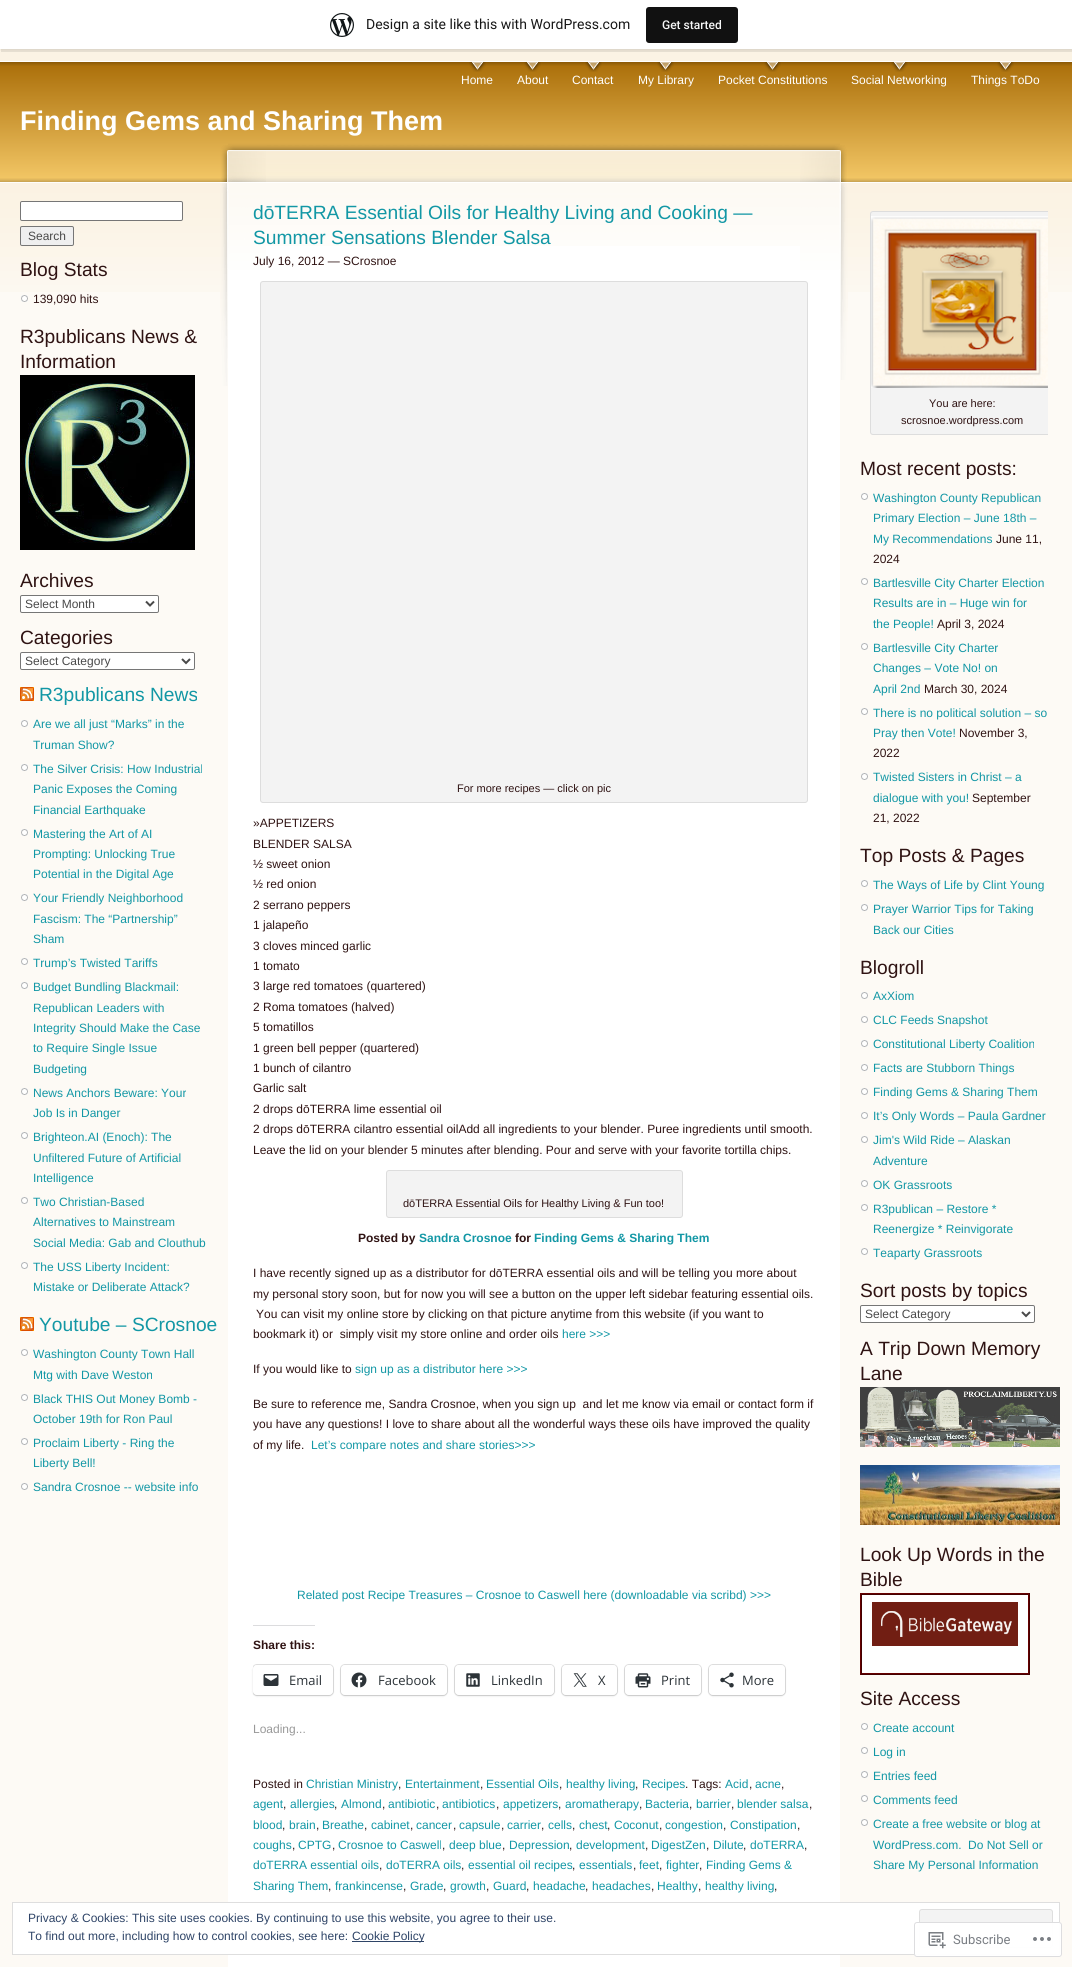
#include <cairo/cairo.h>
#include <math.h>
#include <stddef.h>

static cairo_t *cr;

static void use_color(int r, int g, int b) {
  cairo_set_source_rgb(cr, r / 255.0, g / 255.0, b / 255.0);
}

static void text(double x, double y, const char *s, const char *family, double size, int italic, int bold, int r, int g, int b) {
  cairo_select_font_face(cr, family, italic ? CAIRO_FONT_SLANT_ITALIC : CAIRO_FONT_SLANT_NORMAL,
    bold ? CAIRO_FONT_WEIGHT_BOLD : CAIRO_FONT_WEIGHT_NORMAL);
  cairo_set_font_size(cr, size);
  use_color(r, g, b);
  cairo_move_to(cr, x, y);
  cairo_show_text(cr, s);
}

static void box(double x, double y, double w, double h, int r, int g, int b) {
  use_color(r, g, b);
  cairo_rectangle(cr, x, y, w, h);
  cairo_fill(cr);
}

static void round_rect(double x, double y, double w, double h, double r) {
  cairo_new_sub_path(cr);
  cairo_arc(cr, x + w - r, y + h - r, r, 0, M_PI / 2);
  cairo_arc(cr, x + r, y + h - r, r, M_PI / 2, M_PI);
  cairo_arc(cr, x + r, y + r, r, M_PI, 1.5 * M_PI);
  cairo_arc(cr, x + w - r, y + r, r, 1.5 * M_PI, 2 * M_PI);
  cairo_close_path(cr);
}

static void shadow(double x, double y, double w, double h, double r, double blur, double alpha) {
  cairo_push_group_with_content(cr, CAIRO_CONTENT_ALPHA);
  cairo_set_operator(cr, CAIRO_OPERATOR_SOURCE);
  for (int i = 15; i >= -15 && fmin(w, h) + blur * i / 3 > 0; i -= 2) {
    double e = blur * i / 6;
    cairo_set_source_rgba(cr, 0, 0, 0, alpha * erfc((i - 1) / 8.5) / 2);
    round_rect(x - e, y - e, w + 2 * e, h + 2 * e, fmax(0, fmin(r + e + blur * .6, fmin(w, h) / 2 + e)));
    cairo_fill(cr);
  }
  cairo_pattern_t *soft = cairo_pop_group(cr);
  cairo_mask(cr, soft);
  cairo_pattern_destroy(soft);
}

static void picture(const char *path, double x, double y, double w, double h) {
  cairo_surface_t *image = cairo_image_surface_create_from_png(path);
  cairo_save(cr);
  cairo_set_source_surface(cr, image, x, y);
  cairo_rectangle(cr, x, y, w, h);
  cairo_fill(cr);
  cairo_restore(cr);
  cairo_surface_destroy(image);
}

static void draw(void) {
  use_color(253, 250, 245);
  cairo_paint(cr);
  box(0, 49, 1072, 12, 251, 243, 228);
  use_color(0, 0, 0);
  shadow(0, 1, 1072, 49, 0, 1, 0.05);
  cairo_set_source_rgba(cr, 0, 0, 0, 0.08);
  cairo_new_path(cr);
  cairo_move_to(cr, 1, 49);
  cairo_line_to(cr, 1, 52);
  cairo_line_to(cr, 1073, 52);
  cairo_line_to(cr, 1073, 3);
  cairo_line_to(cr, 1072, 3);
  cairo_line_to(cr, 1072, 49);
  cairo_close_path(cr);
  cairo_fill(cr);
  box(0, 0, 1072, 49, 255, 255, 255);
  picture("img_01.png", 330, 13, 24, 24);
  use_color(17, 17, 17);
  round_rect(646, 7, 92, 36, 3);
  cairo_fill(cr);
  picture("img_02.png", 0, 61, 1072, 231);
  picture("img_03.png", 469, 62, 17, 10);
  picture("img_03.png", 524, 62, 17, 10);
  picture("img_03.png", 585, 62, 17, 10);
  picture("img_03.png", 657, 62, 17, 10);
  picture("img_03.png", 764, 62, 17, 10);
  picture("img_03.png", 891, 62, 17, 10);
  picture("img_03.png", 997, 62, 17, 10);
  use_color(255, 255, 255);
  round_rect(20.5, 201.5, 162, 19, 1.5);
  cairo_fill_preserve(cr);
  use_color(118, 118, 118);
  cairo_set_line_width(cr, 1);
  cairo_stroke(cr);
  use_color(239, 239, 239);
  round_rect(20.5, 226.5, 53, 19, 1.5);
  cairo_fill_preserve(cr);
  use_color(118, 118, 118);
  cairo_stroke(cr);
  picture("img_04.png", 21, 295, 7, 7);
  picture("img_05.png", 20, 375, 175, 175);
  use_color(255, 255, 255);
  round_rect(20.5, 595.5, 138, 17, 1.5);
  cairo_fill_preserve(cr);
  use_color(118, 118, 118);
  cairo_stroke(cr);
  cairo_new_path(cr);
  cairo_move_to(cr, 146, 601.5);
  cairo_line_to(cr, 150, 605.5);
  cairo_line_to(cr, 154, 601.5);
  use_color(73, 73, 73);
  cairo_set_line_width(cr, 2);
  cairo_stroke(cr);
  use_color(255, 255, 255);
  round_rect(20.5, 652.5, 174, 17, 1.5);
  cairo_fill_preserve(cr);
  use_color(118, 118, 118);
  cairo_set_line_width(cr, 1);
  cairo_stroke(cr);
  cairo_new_path(cr);
  cairo_move_to(cr, 182, 659);
  cairo_line_to(cr, 186, 663);
  cairo_line_to(cr, 190, 659);
  use_color(73, 73, 73);
  cairo_set_line_width(cr, 2);
  cairo_stroke(cr);
  box(20, 687, 14, 14, 255, 165, 0);
  picture("img_06.png", 20, 687, 14, 14);
  picture("img_04.png", 21, 720, 7, 7);
  picture("img_04.png", 21, 764, 7, 7);
  picture("img_04.png", 21, 829, 7, 7);
  picture("img_04.png", 21, 894, 7, 7);
  picture("img_04.png", 21, 958, 7, 7);
  picture("img_04.png", 21, 982, 7, 7);
  picture("img_04.png", 21, 1088, 7, 7);
  picture("img_04.png", 21, 1132, 7, 7);
  picture("img_04.png", 21, 1197, 7, 7);
  picture("img_04.png", 21, 1262, 7, 7);
  box(20, 1317, 14, 14, 255, 165, 0);
  picture("img_06.png", 20, 1317, 14, 14);
  picture("img_04.png", 21, 1349, 7, 7);
  picture("img_04.png", 21, 1394, 7, 7);
  picture("img_04.png", 21, 1438, 7, 7);
  picture("img_04.png", 21, 1483, 7, 7);
  box(228, 246, 612, 1721, 255, 255, 255);
  picture("img_07.png", 228, 141, 612, 105);
  picture("img_08.png", 800, 145, 48, 235);
  picture("img_09.png", 220, 145, 46, 241);
  use_color(243, 243, 243);
  round_rect(260.5, 281.5, 547, 521, 2.5);
  cairo_fill_preserve(cr);
  use_color(221, 221, 221);
  cairo_set_line_width(cr, 1);
  cairo_stroke(cr);
  use_color(243, 243, 243);
  round_rect(386.5, 1170.5, 296, 47, 2.5);
  cairo_fill_preserve(cr);
  use_color(221, 221, 221);
  cairo_stroke(cr);
  box(253, 1625, 62, 1, 220, 220, 222);
  cairo_save(cr);
  cairo_rectangle(cr, 253, 201, 562, 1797);
  cairo_clip(cr);
  round_rect(252.5, 1664.5, 81, 31, 4.5);
  use_color(224, 224, 224);
  cairo_stroke(cr);
  cairo_restore(cr);
  use_color(0, 0, 0);
  shadow(253, 1666, 80, 30, 4, 1, 0.12);
  use_color(255, 255, 255);
  round_rect(253, 1665, 80, 30, 4);
  cairo_fill(cr);
  picture("img_10.png", 263, 1674, 16, 12);
  round_rect(340.5, 1664.5, 107, 31, 4.5);
  use_color(224, 224, 224);
  cairo_stroke(cr);
  use_color(0, 0, 0);
  shadow(341, 1666, 106, 30, 4, 1, 0.12);
  use_color(255, 255, 255);
  round_rect(341, 1665, 106, 30, 4);
  cairo_fill(cr);
  picture("img_11.png", 351, 1672, 16, 16);
  round_rect(454.5, 1664.5, 100, 31, 4.5);
  use_color(224, 224, 224);
  cairo_stroke(cr);
  use_color(0, 0, 0);
  shadow(455, 1666, 99, 30, 4, 1, 0.12);
  use_color(255, 255, 255);
  round_rect(455, 1665, 99, 30, 4);
  cairo_fill(cr);
  picture("img_12.png", 466, 1673, 14, 14);
  round_rect(561.5, 1664.5, 56, 31, 4.5);
  use_color(224, 224, 224);
  cairo_stroke(cr);
  use_color(0, 0, 0);
  shadow(562, 1666, 55, 30, 4, 1, 0.12);
  use_color(255, 255, 255);
  round_rect(562, 1665, 55, 30, 4);
  cairo_fill(cr);
  picture("img_13.png", 573, 1673, 14, 14);
  round_rect(624.5, 1664.5, 77, 31, 4.5);
  use_color(224, 224, 224);
  cairo_stroke(cr);
  use_color(0, 0, 0);
  shadow(625, 1666, 76, 30, 4, 1, 0.12);
  use_color(255, 255, 255);
  round_rect(625, 1665, 76, 30, 4);
  cairo_fill(cr);
  picture("img_14.png", 635, 1673, 16, 15);
  round_rect(708.5, 1664.5, 77, 31, 4.5);
  use_color(224, 224, 224);
  cairo_stroke(cr);
  use_color(0, 0, 0);
  shadow(709, 1666, 76, 30, 4, 1, 0.12);
  use_color(255, 255, 255);
  round_rect(709, 1665, 76, 30, 4);
  cairo_fill(cr);
  picture("img_15.png", 720, 1672, 14, 16);
  use_color(243, 243, 243);
  cairo_new_path(cr);
  cairo_move_to(cr, 873, 211);
  cairo_line_to(cr, 1048, 211);
  cairo_line_to(cr, 1048, 435);
  cairo_line_to(cr, 873, 435);
  cairo_curve_to(cr, 871.5, 435, 870, 433.5, 870, 432);
  cairo_line_to(cr, 870, 214);
  cairo_curve_to(cr, 870, 212.5, 871.5, 211, 873, 211);
  cairo_close_path(cr);
  cairo_fill(cr);
  cairo_save(cr);
  cairo_rectangle(cr, 860, 201, 188, 244);
  cairo_clip(cr);
  round_rect(870.5, 211.5, 183, 223, 2.5);
  use_color(221, 221, 221);
  cairo_stroke(cr);
  cairo_restore(cr);
  picture("img_16.png", 871, 216, 177, 172);
  picture("img_04.png", 861, 493, 7, 7);
  picture("img_04.png", 861, 578, 7, 7);
  picture("img_04.png", 861, 643, 7, 7);
  picture("img_04.png", 861, 708, 7, 7);
  picture("img_04.png", 861, 773, 7, 7);
  picture("img_04.png", 861, 880, 7, 7);
  picture("img_04.png", 861, 904, 7, 7);
  picture("img_04.png", 861, 992, 7, 7);
  picture("img_04.png", 861, 1016, 7, 7);
  picture("img_04.png", 861, 1040, 7, 7);
  picture("img_04.png", 861, 1064, 7, 7);
  picture("img_04.png", 861, 1088, 7, 7);
  picture("img_04.png", 861, 1112, 7, 7);
  picture("img_04.png", 861, 1136, 7, 7);
  picture("img_04.png", 861, 1180, 7, 7);
  picture("img_04.png", 861, 1204, 7, 7);
  picture("img_04.png", 861, 1248, 7, 7);
  use_color(255, 255, 255);
  round_rect(860.5, 1305.5, 174, 17, 1.5);
  cairo_fill_preserve(cr);
  use_color(118, 118, 118);
  cairo_stroke(cr);
  cairo_new_path(cr);
  cairo_move_to(cr, 1022, 1312);
  cairo_line_to(cr, 1026, 1316);
  cairo_line_to(cr, 1030, 1312);
  use_color(73, 73, 73);
  cairo_set_line_width(cr, 2);
  cairo_stroke(cr);
  picture("img_17.png", 860, 1387, 200, 60);
  picture("img_18.png", 860, 1465, 200, 60);
  box(860, 1593, 170, 1, 102, 0, 0);
  box(1029, 1593, 1, 82, 68, 0, 0);
  box(860, 1674, 170, 1, 68, 0, 0);
  box(860, 1593, 1, 82, 102, 0, 0);
  box(862, 1595, 166, 78, 255, 255, 255);
  box(861, 1594, 168, 1, 68, 0, 0);
  box(1028, 1594, 1, 80, 102, 0, 0);
  box(861, 1673, 168, 1, 102, 0, 0);
  box(861, 1594, 1, 80, 68, 0, 0);
  picture("img_19.png", 872, 1602, 146, 44);
  picture("img_04.png", 861, 1723, 7, 7);
  picture("img_04.png", 861, 1747, 7, 7);
  picture("img_04.png", 861, 1771, 7, 7);
  picture("img_04.png", 861, 1795, 7, 7);
  picture("img_04.png", 861, 1819, 7, 7);
  use_color(255, 255, 255);
  cairo_rectangle(cr, 12.5, 1902.5, 1047, 52);
  cairo_fill_preserve(cr);
  use_color(222, 222, 222);
  cairo_set_line_width(cr, 1);
  cairo_stroke(cr);
  use_color(243, 243, 243);
  round_rect(919.5, 1909.5, 133, 38, 2.5);
  cairo_fill_preserve(cr);
  use_color(222, 222, 222);
  cairo_stroke(cr);
  box(352, 1941, 72, 1, 46, 68, 103);
  cairo_set_source_rgba(cr, 1, 1, 1, 0.98);
  round_rect(914, 1922, 148, 35, 3);
  cairo_fill(cr);
  round_rect(914.5, 1922.5, 147, 34, 2.5);
  cairo_set_source_rgba(cr, 0.863, 0.863, 0.871, 0.98);
  cairo_stroke(cr);
  picture("img_20.png", 928, 1932, 18, 17);
  picture("img_21.png", 1033, 1937, 18, 4);
  text(366, 29, "Design a site like this with WordPress.com", "Roboto", 14, 0, 0, 23, 23, 23);
  text(662, 29, "Get started", "Roboto Medium", 12, 0, 0, 246, 247, 247);
  text(461, 84, "Home", "Liberation Sans", 12, 0, 0, 255, 255, 255);
  text(517, 84, "About", "Liberation Sans", 12, 0, 0, 255, 255, 255);
  text(572, 84, "Contact", "Liberation Sans", 12, 0, 0, 255, 255, 255);
  text(638, 84, "My Library", "Liberation Sans", 12, 0, 0, 255, 255, 255);
  text(718, 84, "Pocket Constitutions", "Liberation Sans", 12, 0, 0, 255, 255, 255);
  text(851, 84, "Social Networking", "Liberation Sans", 12, 0, 0, 255, 255, 255);
  text(971, 84, "Things ToDo", "Liberation Sans", 12, 0, 0, 255, 255, 255);
  text(20, 130, "Finding Gems and Sharing Them", "Liberation Sans", 27, 0, 1, 255, 255, 255);
  text(28, 240, "Search", "Liberation Sans", 12, 0, 0, 73, 73, 73);
  text(20, 276, "Blog Stats", "Liberation Sans", 19.2, 0, 0, 47, 19, 19);
  text(33, 303, "139,090 hits", "Liberation Sans", 12, 0, 0, 47, 19, 19);
  text(20, 343, "R3publicans News &", "Liberation Sans", 19.2, 0, 0, 47, 19, 19);
  text(20, 368, "Information", "Liberation Sans", 19.2, 0, 0, 47, 19, 19);
  text(20, 587, "Archives", "Liberation Sans", 19.2, 0, 0, 47, 19, 19);
  text(25, 608, "Select Month", "Liberation Sans", 12, 0, 0, 73, 73, 73);
  text(20, 644, "Categories", "Liberation Sans", 19.2, 0, 0, 47, 19, 19);
  text(25, 665, "Select Category", "Liberation Sans", 12, 0, 0, 73, 73, 73);
  text(39, 701, "R3publicans News", "Liberation Sans", 19.2, 0, 0, 18, 151, 165);
  text(33, 728, "Are we all just “Marks” in the", "Liberation Sans", 12, 0, 0, 18, 151, 165);
  text(33, 749, "Truman Show?", "Liberation Sans", 12, 0, 0, 18, 151, 165);
  text(33, 773, "The Silver Crisis: How Industrial", "Liberation Sans", 12, 0, 0, 18, 151, 165);
  text(33, 793, "Panic Exposes the Coming", "Liberation Sans", 12, 0, 0, 18, 151, 165);
  text(33, 814, "Financial Earthquake", "Liberation Sans", 12, 0, 0, 18, 151, 165);
  text(33, 838, "Mastering the Art of AI", "Liberation Sans", 12, 0, 0, 18, 151, 165);
  text(33, 858, "Prompting: Unlocking True", "Liberation Sans", 12, 0, 0, 18, 151, 165);
  text(33, 878, "Potential in the Digital Age", "Liberation Sans", 12, 0, 0, 18, 151, 165);
  text(33, 902, "Your Friendly Neighborhood", "Liberation Sans", 12, 0, 0, 18, 151, 165);
  text(33, 923, "Fascism: The “Partnership”", "Liberation Sans", 12, 0, 0, 18, 151, 165);
  text(33, 943, "Sham", "Liberation Sans", 12, 0, 0, 18, 151, 165);
  text(33, 967, "Trump’s Twisted Tariffs", "Liberation Sans", 12, 0, 0, 18, 151, 165);
  text(33, 991, "Budget Bundling Blackmail:", "Liberation Sans", 12, 0, 0, 18, 151, 165);
  text(33, 1012, "Republican Leaders with", "Liberation Sans", 12, 0, 0, 18, 151, 165);
  text(33, 1032, "Integrity Should Make the Case", "Liberation Sans", 12, 0, 0, 18, 151, 165);
  text(33, 1052, "to Require Single Issue", "Liberation Sans", 12, 0, 0, 18, 151, 165);
  text(33, 1073, "Budgeting", "Liberation Sans", 12, 0, 0, 18, 151, 165);
  text(33, 1097, "News Anchors Beware: Your", "Liberation Sans", 12, 0, 0, 18, 151, 165);
  text(33, 1117, "Job Is in Danger", "Liberation Sans", 12, 0, 0, 18, 151, 165);
  text(33, 1141, "Brighteon.AI (Enoch): The", "Liberation Sans", 12, 0, 0, 18, 151, 165);
  text(33, 1162, "Unfiltered Future of Artificial", "Liberation Sans", 12, 0, 0, 18, 151, 165);
  text(33, 1182, "Intelligence", "Liberation Sans", 12, 0, 0, 18, 151, 165);
  text(33, 1206, "Two Christian-Based", "Liberation Sans", 12, 0, 0, 18, 151, 165);
  text(33, 1226, "Alternatives to Mainstream", "Liberation Sans", 12, 0, 0, 18, 151, 165);
  text(33, 1247, "Social Media: Gab and Clouthub", "Liberation Sans", 12, 0, 0, 18, 151, 165);
  text(33, 1271, "The USS Liberty Incident:", "Liberation Sans", 12, 0, 0, 18, 151, 165);
  text(33, 1291, "Mistake or Deliberate Attack?", "Liberation Sans", 12, 0, 0, 18, 151, 165);
  text(39, 1331, "Youtube – SCrosnoe", "Liberation Sans", 19.2, 0, 0, 18, 151, 165);
  text(33, 1358, "Washington County Town Hall", "Liberation Sans", 12, 0, 0, 18, 151, 165);
  text(33, 1379, "Mtg with Dave Weston", "Liberation Sans", 12, 0, 0, 18, 151, 165);
  text(33, 1403, "Black THIS Out Money Bomb -", "Liberation Sans", 12, 0, 0, 18, 151, 165);
  text(33, 1423, "October 19th for Ron Paul", "Liberation Sans", 12, 0, 0, 18, 151, 165);
  text(33, 1447, "Proclaim Liberty - Ring the", "Liberation Sans", 12, 0, 0, 18, 151, 165);
  text(33, 1467, "Liberty Bell!", "Liberation Sans", 12, 0, 0, 18, 151, 165);
  text(33, 1491, "Sandra Crosnoe -- website info", "Liberation Sans", 12, 0, 0, 18, 151, 165);
  text(253, 219, "dōTERRA Essential Oils for Healthy Living and Cooking —", "Liberation Sans", 19.2, 0, 0, 18, 151, 165);
  text(253, 244, "Summer Sensations Blender Salsa", "Liberation Sans", 19.2, 0, 0, 18, 151, 165);
  text(253, 265, "July 16, 2012 — SCrosnoe", "Liberation Sans", 12, 0, 0, 47, 19, 19);
  text(457, 792, "For more recipes — click on pic", "Liberation Sans", 11, 0, 0, 47, 19, 19);
  text(253, 827, "»APPETIZERS", "Liberation Sans", 12, 0, 0, 47, 19, 19);
  text(253, 848, "BLENDER SALSA", "Liberation Sans", 12, 0, 0, 47, 19, 19);
  text(253, 868, "½ sweet onion", "Liberation Sans", 12, 0, 0, 47, 19, 19);
  text(253, 888, "½ red onion", "Liberation Sans", 12, 0, 0, 47, 19, 19);
  text(253, 909, "2 serrano peppers", "Liberation Sans", 12, 0, 0, 47, 19, 19);
  text(253, 929, "1 jalapeño", "Liberation Sans", 12, 0, 0, 47, 19, 19);
  text(253, 950, "3 cloves minced garlic", "Liberation Sans", 12, 0, 0, 47, 19, 19);
  text(253, 970, "1 tomato", "Liberation Sans", 12, 0, 0, 47, 19, 19);
  text(253, 990, "3 large red tomatoes (quartered)", "Liberation Sans", 12, 0, 0, 47, 19, 19);
  text(253, 1011, "2 Roma tomatoes (halved)", "Liberation Sans", 12, 0, 0, 47, 19, 19);
  text(253, 1031, "5 tomatillos", "Liberation Sans", 12, 0, 0, 47, 19, 19);
  text(253, 1052, "1 green bell pepper (quartered)", "Liberation Sans", 12, 0, 0, 47, 19, 19);
  text(253, 1072, "1 bunch of cilantro", "Liberation Sans", 12, 0, 0, 47, 19, 19);
  text(253, 1092, "Garlic salt", "Liberation Sans", 12, 0, 0, 47, 19, 19);
  text(253, 1113, "2 drops dōTERRA lime essential oil", "Liberation Sans", 12, 0, 0, 47, 19, 19);
  text(253, 1133, "2 drops dōTERRA cilantro essential oilAdd all ingredients to your blender. Puree ingredients until smooth.", "Liberation Sans", 12, 0, 0, 47, 19, 19);
  text(253, 1154, "Leave the lid on your blender 5 minutes after blending. Pour and serve with your favorite tortilla chips.", "Liberation Sans", 12, 0, 0, 47, 19, 19);
  text(403, 1207, "dōTERRA Essential Oils for Healthy Living & Fun too!", "Liberation Sans", 11, 0, 0, 47, 19, 19);
  text(358, 1242, "Posted by", "Liberation Sans", 12, 0, 1, 47, 19, 19);
  text(419, 1242, "Sandra Crosnoe", "Liberation Sans", 12, 0, 1, 18, 151, 165);
  text(515, 1242, "for", "Liberation Sans", 12, 0, 1, 47, 19, 19);
  text(534, 1242, "Finding Gems & Sharing Them", "Liberation Sans", 12, 0, 1, 18, 151, 165);
  text(253, 1277, "I have recently signed up as a distributor for dōTERRA essential oils and will be telling you more about", "Liberation Sans", 12, 0, 0, 47, 19, 19);
  text(253, 1298, "my personal story soon, but for now you will see a button on the upper left sidebar featuring essential oils.", "Liberation Sans", 12, 0, 0, 47, 19, 19);
  text(256, 1318, "You can visit my online store by clicking on that picture anytime from this website (if you want to", "Liberation Sans", 12, 0, 0, 47, 19, 19);
  text(253, 1338, "bookmark it) or  simply visit my store online and order oils", "Liberation Sans", 12, 0, 0, 47, 19, 19);
  text(562, 1338, "here >>>", "Liberation Sans", 12, 0, 0, 18, 151, 165);
  text(253, 1373, "If you would like to", "Liberation Sans", 12, 0, 0, 47, 19, 19);
  text(355, 1373, "sign up as a distributor here >>>", "Liberation Sans", 12, 0, 0, 18, 151, 165);
  text(253, 1408, "Be sure to reference me, Sandra Crosnoe, when you sign up  and let me know via email or contact form if", "Liberation Sans", 12, 0, 0, 47, 19, 19);
  text(253, 1428, "you have any questions! I love to share about all the wonderful ways these oils have improved the quality", "Liberation Sans", 12, 0, 0, 47, 19, 19);
  text(253, 1449, "of my life.", "Liberation Sans", 12, 0, 0, 47, 19, 19);
  text(311, 1449, "Let’s compare notes and share stories>>>", "Liberation Sans", 12, 0, 0, 18, 151, 165);
  text(297, 1599, "Related post Recipe Treasures – Crosnoe to Caswell here (downloadable via scribd) >>>", "Liberation Sans", 12, 0, 0, 18, 151, 165);
  text(253, 1649, "Share this:", "Liberation Sans", 12, 0, 1, 47, 19, 19);
  text(289, 1685, "Email", "Open Sans", 13, 0, 0, 44, 51, 56);
  text(378, 1685, "Facebook", "Open Sans", 13, 0, 0, 44, 51, 56);
  text(491, 1685, "LinkedIn", "Open Sans", 13, 0, 0, 44, 51, 56);
  text(598, 1685, "X", "Open Sans", 13, 0, 0, 44, 51, 56);
  text(661, 1685, "Print", "Open Sans", 13, 0, 0, 44, 51, 56);
  text(742, 1685, "More", "Open Sans", 13, 0, 0, 44, 51, 56);
  text(253, 1733, "Loading...", "Liberation Sans", 12, 0, 0, 153, 153, 153);
  text(253, 1788, "Posted in", "Liberation Sans", 12, 0, 0, 47, 19, 19);
  text(306, 1788, "Christian Ministry", "Liberation Sans", 12, 0, 0, 18, 151, 165);
  text(398, 1788, ",", "Liberation Sans", 12, 0, 0, 47, 19, 19);
  text(405, 1788, "Entertainment", "Liberation Sans", 12, 0, 0, 18, 151, 165);
  text(480, 1788, ",", "Liberation Sans", 12, 0, 0, 47, 19, 19);
  text(486, 1788, "Essential Oils", "Liberation Sans", 12, 0, 0, 18, 151, 165);
  text(559, 1788, ",", "Liberation Sans", 12, 0, 0, 47, 19, 19);
  text(566, 1788, "healthy living", "Liberation Sans", 12, 0, 0, 18, 151, 165);
  text(635, 1788, ",", "Liberation Sans", 12, 0, 0, 47, 19, 19);
  text(642, 1788, "Recipes", "Liberation Sans", 12, 0, 0, 18, 151, 165);
  text(685, 1788, ". Tags:", "Liberation Sans", 12, 0, 0, 47, 19, 19);
  text(725, 1788, "Acid", "Liberation Sans", 12, 0, 0, 18, 151, 165);
  text(749, 1788, ",", "Liberation Sans", 12, 0, 0, 47, 19, 19);
  text(755, 1788, "acne", "Liberation Sans", 12, 0, 0, 18, 151, 165);
  text(781, 1788, ",", "Liberation Sans", 12, 0, 0, 47, 19, 19);
  text(253, 1808, "agent", "Liberation Sans", 12, 0, 0, 18, 151, 165);
  text(283, 1808, ",", "Liberation Sans", 12, 0, 0, 47, 19, 19);
  text(290, 1808, "allergies", "Liberation Sans", 12, 0, 0, 18, 151, 165);
  text(334, 1808, ",", "Liberation Sans", 12, 0, 0, 47, 19, 19);
  text(341, 1808, "Almond", "Liberation Sans", 12, 0, 0, 18, 151, 165);
  text(382, 1808, ",", "Liberation Sans", 12, 0, 0, 47, 19, 19);
  text(388, 1808, "antibiotic", "Liberation Sans", 12, 0, 0, 18, 151, 165);
  text(436, 1808, ",", "Liberation Sans", 12, 0, 0, 47, 19, 19);
  text(442, 1808, "antibiotics", "Liberation Sans", 12, 0, 0, 18, 151, 165);
  text(496, 1808, ",", "Liberation Sans", 12, 0, 0, 47, 19, 19);
  text(503, 1808, "appetizers", "Liberation Sans", 12, 0, 0, 18, 151, 165);
  text(558, 1808, ",", "Liberation Sans", 12, 0, 0, 47, 19, 19);
  text(565, 1808, "aromatherapy", "Liberation Sans", 12, 0, 0, 18, 151, 165);
  text(639, 1808, ",", "Liberation Sans", 12, 0, 0, 47, 19, 19);
  text(645, 1808, "Bacteria", "Liberation Sans", 12, 0, 0, 18, 151, 165);
  text(689, 1808, ",", "Liberation Sans", 12, 0, 0, 47, 19, 19);
  text(696, 1808, "barrier", "Liberation Sans", 12, 0, 0, 18, 151, 165);
  text(731, 1808, ",", "Liberation Sans", 12, 0, 0, 47, 19, 19);
  text(737, 1808, "blender salsa", "Liberation Sans", 12, 0, 0, 18, 151, 165);
  text(809, 1808, ",", "Liberation Sans", 12, 0, 0, 47, 19, 19);
  text(253, 1829, "blood", "Liberation Sans", 12, 0, 0, 18, 151, 165);
  text(282, 1829, ",", "Liberation Sans", 12, 0, 0, 47, 19, 19);
  text(289, 1829, "brain", "Liberation Sans", 12, 0, 0, 18, 151, 165);
  text(316, 1829, ",", "Liberation Sans", 12, 0, 0, 47, 19, 19);
  text(322, 1829, "Breathe", "Liberation Sans", 12, 0, 0, 18, 151, 165);
  text(364, 1829, ",", "Liberation Sans", 12, 0, 0, 47, 19, 19);
  text(371, 1829, "cabinet", "Liberation Sans", 12, 0, 0, 18, 151, 165);
  text(410, 1829, ",", "Liberation Sans", 12, 0, 0, 47, 19, 19);
  text(416, 1829, "cancer", "Liberation Sans", 12, 0, 0, 18, 151, 165);
  text(453, 1829, ",", "Liberation Sans", 12, 0, 0, 47, 19, 19);
  text(459, 1829, "capsule", "Liberation Sans", 12, 0, 0, 18, 151, 165);
  text(501, 1829, ",", "Liberation Sans", 12, 0, 0, 47, 19, 19);
  text(507, 1829, "carrier", "Liberation Sans", 12, 0, 0, 18, 151, 165);
  text(541, 1829, ",", "Liberation Sans", 12, 0, 0, 47, 19, 19);
  text(548, 1829, "cells", "Liberation Sans", 12, 0, 0, 18, 151, 165);
  text(572, 1829, ",", "Liberation Sans", 12, 0, 0, 47, 19, 19);
  text(579, 1829, "chest", "Liberation Sans", 12, 0, 0, 18, 151, 165);
  text(607, 1829, ",", "Liberation Sans", 12, 0, 0, 47, 19, 19);
  text(614, 1829, "Coconut", "Liberation Sans", 12, 0, 0, 18, 151, 165);
  text(659, 1829, ",", "Liberation Sans", 12, 0, 0, 47, 19, 19);
  text(665, 1829, "congestion", "Liberation Sans", 12, 0, 0, 18, 151, 165);
  text(723, 1829, ",", "Liberation Sans", 12, 0, 0, 47, 19, 19);
  text(730, 1829, "Constipation", "Liberation Sans", 12, 0, 0, 18, 151, 165);
  text(797, 1829, ",", "Liberation Sans", 12, 0, 0, 47, 19, 19);
  text(253, 1849, "coughs", "Liberation Sans", 12, 0, 0, 18, 151, 165);
  text(292, 1849, ",", "Liberation Sans", 12, 0, 0, 47, 19, 19);
  text(298, 1849, "CPTG", "Liberation Sans", 12, 0, 0, 18, 151, 165);
  text(332, 1849, ",", "Liberation Sans", 12, 0, 0, 47, 19, 19);
  text(338, 1849, "Crosnoe to Caswell", "Liberation Sans", 12, 0, 0, 18, 151, 165);
  text(442, 1849, ",", "Liberation Sans", 12, 0, 0, 47, 19, 19);
  text(449, 1849, "deep blue", "Liberation Sans", 12, 0, 0, 18, 151, 165);
  text(502, 1849, ",", "Liberation Sans", 12, 0, 0, 47, 19, 19);
  text(509, 1849, "Depression", "Liberation Sans", 12, 0, 0, 18, 151, 165);
  text(569, 1849, ",", "Liberation Sans", 12, 0, 0, 47, 19, 19);
  text(576, 1849, "development", "Liberation Sans", 12, 0, 0, 18, 151, 165);
  text(645, 1849, ",", "Liberation Sans", 12, 0, 0, 47, 19, 19);
  text(651, 1849, "DigestZen", "Liberation Sans", 12, 0, 0, 18, 151, 165);
  text(706, 1849, ",", "Liberation Sans", 12, 0, 0, 47, 19, 19);
  text(713, 1849, "Dilute", "Liberation Sans", 12, 0, 0, 18, 151, 165);
  text(743, 1849, ",", "Liberation Sans", 12, 0, 0, 47, 19, 19);
  text(750, 1849, "doTERRA", "Liberation Sans", 12, 0, 0, 18, 151, 165);
  text(804, 1849, ",", "Liberation Sans", 12, 0, 0, 47, 19, 19);
  text(253, 1869, "doTERRA essential oils", "Liberation Sans", 12, 0, 0, 18, 151, 165);
  text(379, 1869, ",", "Liberation Sans", 12, 0, 0, 47, 19, 19);
  text(386, 1869, "doTERRA oils", "Liberation Sans", 12, 0, 0, 18, 151, 165);
  text(461, 1869, ",", "Liberation Sans", 12, 0, 0, 47, 19, 19);
  text(468, 1869, "essential oil recipes", "Liberation Sans", 12, 0, 0, 18, 151, 165);
  text(572, 1869, ",", "Liberation Sans", 12, 0, 0, 47, 19, 19);
  text(579, 1869, "essentials", "Liberation Sans", 12, 0, 0, 18, 151, 165);
  text(633, 1869, ",", "Liberation Sans", 12, 0, 0, 47, 19, 19);
  text(639, 1869, "feet", "Liberation Sans", 12, 0, 0, 18, 151, 165);
  text(659, 1869, ",", "Liberation Sans", 12, 0, 0, 47, 19, 19);
  text(666, 1869, "fighter", "Liberation Sans", 12, 0, 0, 18, 151, 165);
  text(699, 1869, ",", "Liberation Sans", 12, 0, 0, 47, 19, 19);
  text(706, 1869, "Finding Gems &", "Liberation Sans", 12, 0, 0, 18, 151, 165);
  text(253, 1890, "Sharing Them", "Liberation Sans", 12, 0, 0, 18, 151, 165);
  text(328, 1890, ",", "Liberation Sans", 12, 0, 0, 47, 19, 19);
  text(335, 1890, "frankincense", "Liberation Sans", 12, 0, 0, 18, 151, 165);
  text(403, 1890, ",", "Liberation Sans", 12, 0, 0, 47, 19, 19);
  text(410, 1890, "Grade", "Liberation Sans", 12, 0, 0, 18, 151, 165);
  text(443, 1890, ",", "Liberation Sans", 12, 0, 0, 47, 19, 19);
  text(450, 1890, "growth", "Liberation Sans", 12, 0, 0, 18, 151, 165);
  text(486, 1890, ",", "Liberation Sans", 12, 0, 0, 47, 19, 19);
  text(493, 1890, "Guard", "Liberation Sans", 12, 0, 0, 18, 151, 165);
  text(526, 1890, ",", "Liberation Sans", 12, 0, 0, 47, 19, 19);
  text(533, 1890, "headache", "Liberation Sans", 12, 0, 0, 18, 151, 165);
  text(585, 1890, ",", "Liberation Sans", 12, 0, 0, 47, 19, 19);
  text(592, 1890, "headaches", "Liberation Sans", 12, 0, 0, 18, 151, 165);
  text(651, 1890, ",", "Liberation Sans", 12, 0, 0, 47, 19, 19);
  text(657, 1890, "Healthy", "Liberation Sans", 12, 0, 0, 18, 151, 165);
  text(698, 1890, ",", "Liberation Sans", 12, 0, 0, 47, 19, 19);
  text(705, 1890, "healthy living", "Liberation Sans", 12, 0, 0, 18, 151, 165);
  text(774, 1890, ",", "Liberation Sans", 12, 0, 0, 47, 19, 19);
  text(929, 407, "You are here:", "Liberation Sans", 11, 0, 0, 47, 19, 19);
  text(901, 424, "scrosnoe.wordpress.com", "Liberation Sans", 11, 0, 0, 47, 19, 19);
  text(860, 475, "Most recent posts:", "Liberation Sans", 19.2, 0, 0, 47, 19, 19);
  text(873, 502, "Washington County Republican", "Liberation Sans", 12, 0, 0, 18, 151, 165);
  text(873, 522, "Primary Election – June 18th –", "Liberation Sans", 12, 0, 0, 18, 151, 165);
  text(873, 543, "My Recommendations", "Liberation Sans", 12, 0, 0, 18, 151, 165);
  text(996, 543, "June 11,", "Liberation Sans", 12, 0, 0, 47, 19, 19);
  text(873, 563, "2024", "Liberation Sans", 12, 0, 0, 47, 19, 19);
  text(873, 587, "Bartlesville City Charter Election", "Liberation Sans", 12, 0, 0, 18, 151, 165);
  text(873, 607, "Results are in – Huge win for", "Liberation Sans", 12, 0, 0, 18, 151, 165);
  text(873, 628, "the People!", "Liberation Sans", 12, 0, 0, 18, 151, 165);
  text(937, 628, "April 3, 2024", "Liberation Sans", 12, 0, 0, 47, 19, 19);
  text(873, 652, "Bartlesville City Charter", "Liberation Sans", 12, 0, 0, 18, 151, 165);
  text(873, 672, "Changes – Vote No! on", "Liberation Sans", 12, 0, 0, 18, 151, 165);
  text(873, 693, "April 2nd", "Liberation Sans", 12, 0, 0, 18, 151, 165);
  text(924, 693, "March 30, 2024", "Liberation Sans", 12, 0, 0, 47, 19, 19);
  text(873, 717, "There is no political solution – so", "Liberation Sans", 12, 0, 0, 18, 151, 165);
  text(873, 737, "Pray then Vote!", "Liberation Sans", 12, 0, 0, 18, 151, 165);
  text(959, 737, "November 3,", "Liberation Sans", 12, 0, 0, 47, 19, 19);
  text(873, 757, "2022", "Liberation Sans", 12, 0, 0, 47, 19, 19);
  text(873, 781, "Twisted Sisters in Christ – a", "Liberation Sans", 12, 0, 0, 18, 151, 165);
  text(873, 802, "dialogue with you!", "Liberation Sans", 12, 0, 0, 18, 151, 165);
  text(972, 802, "September", "Liberation Sans", 12, 0, 0, 47, 19, 19);
  text(873, 822, "21, 2022", "Liberation Sans", 12, 0, 0, 47, 19, 19);
  text(860, 862, "Top Posts & Pages", "Liberation Sans", 19.2, 0, 0, 47, 19, 19);
  text(873, 889, "The Ways of Life by Clint Young", "Liberation Sans", 12, 0, 0, 18, 151, 165);
  text(873, 913, "Prayer Warrior Tips for Taking", "Liberation Sans", 12, 0, 0, 18, 151, 165);
  text(873, 934, "Back our Cities", "Liberation Sans", 12, 0, 0, 18, 151, 165);
  text(860, 974, "Blogroll", "Liberation Sans", 19.2, 0, 0, 47, 19, 19);
  text(873, 1000, "AxXiom", "Liberation Sans", 12, 0, 0, 18, 151, 165);
  text(873, 1024, "CLC Feeds Snapshot", "Liberation Sans", 12, 0, 0, 18, 151, 165);
  text(873, 1048, "Constitutional Liberty Coalition", "Liberation Sans", 12, 0, 0, 18, 151, 165);
  text(873, 1072, "Facts are Stubborn Things", "Liberation Sans", 12, 0, 0, 18, 151, 165);
  text(873, 1096, "Finding Gems & Sharing Them", "Liberation Sans", 12, 0, 0, 18, 151, 165);
  text(873, 1120, "It’s Only Words – Paula Gardner", "Liberation Sans", 12, 0, 0, 18, 151, 165);
  text(873, 1144, "Jim's Wild Ride – Alaskan", "Liberation Sans", 12, 0, 0, 18, 151, 165);
  text(873, 1165, "Adventure", "Liberation Sans", 12, 0, 0, 18, 151, 165);
  text(873, 1189, "OK Grassroots", "Liberation Sans", 12, 0, 0, 18, 151, 165);
  text(873, 1213, "R3publican – Restore *", "Liberation Sans", 12, 0, 0, 18, 151, 165);
  text(873, 1233, "Reenergize * Reinvigorate", "Liberation Sans", 12, 0, 0, 18, 151, 165);
  text(873, 1257, "Teaparty Grassroots", "Liberation Sans", 12, 0, 0, 18, 151, 165);
  text(860, 1297, "Sort posts by topics", "Liberation Sans", 19.2, 0, 0, 47, 19, 19);
  text(865, 1318, "Select Category", "Liberation Sans", 12, 0, 0, 73, 73, 73);
  text(860, 1355, "A Trip Down Memory", "Liberation Sans", 19.2, 0, 0, 47, 19, 19);
  text(860, 1380, "Lane", "Liberation Sans", 19.2, 0, 0, 47, 19, 19);
  text(860, 1561, "Look Up Words in the", "Liberation Sans", 19.2, 0, 0, 47, 19, 19);
  text(860, 1586, "Bible", "Liberation Sans", 19.2, 0, 0, 47, 19, 19);
  text(860, 1705, "Site Access", "Liberation Sans", 19.2, 0, 0, 47, 19, 19);
  text(873, 1732, "Create account", "Liberation Sans", 12, 0, 0, 18, 151, 165);
  text(873, 1756, "Log in", "Liberation Sans", 12, 0, 0, 18, 151, 165);
  text(873, 1780, "Entries feed", "Liberation Sans", 12, 0, 0, 18, 151, 165);
  text(873, 1804, "Comments feed", "Liberation Sans", 12, 0, 0, 18, 151, 165);
  text(873, 1828, "Create a free website or blog at", "Liberation Sans", 12, 0, 0, 18, 151, 165);
  text(873, 1849, "WordPress.com.", "Liberation Sans", 12, 0, 0, 18, 151, 165);
  text(968, 1849, "Do Not Sell or", "Liberation Sans", 12, 0, 0, 18, 151, 165);
  text(873, 1869, "Share My Personal Information", "Liberation Sans", 12, 0, 0, 18, 151, 165);
  text(28, 1922, "Privacy & Cookies: This site uses cookies. By continuing to use this website, you agree to their use.", "Liberation Sans", 12, 0, 0, 46, 68, 103);
  text(28, 1940, "To find out more, including how to control cookies, see here:", "Liberation Sans", 12, 0, 0, 46, 68, 103);
  text(352, 1940, "Cookie Policy", "Liberation Sans", 12, 0, 0, 46, 68, 103);
  text(953, 1944, "Subscribe", "Roboto", 13, 0, 0, 122, 126, 132);
}

int main(void) {
  cairo_surface_t *surface = cairo_image_surface_create(CAIRO_FORMAT_RGB24, 1072, 1967);
  cr = cairo_create(surface);
  cairo_font_options_t *options = cairo_font_options_create();
  cairo_font_options_set_hint_metrics(options, CAIRO_HINT_METRICS_OFF);
  cairo_font_options_set_hint_style(options, CAIRO_HINT_STYLE_NONE);
  cairo_set_font_options(cr, options);
  cairo_set_miter_limit(cr, 4);
  draw();
  cairo_surface_write_to_png(surface, "out.png");
  cairo_font_options_destroy(options);
  cairo_destroy(cr);
  cairo_surface_destroy(surface);
  return 0;
}
